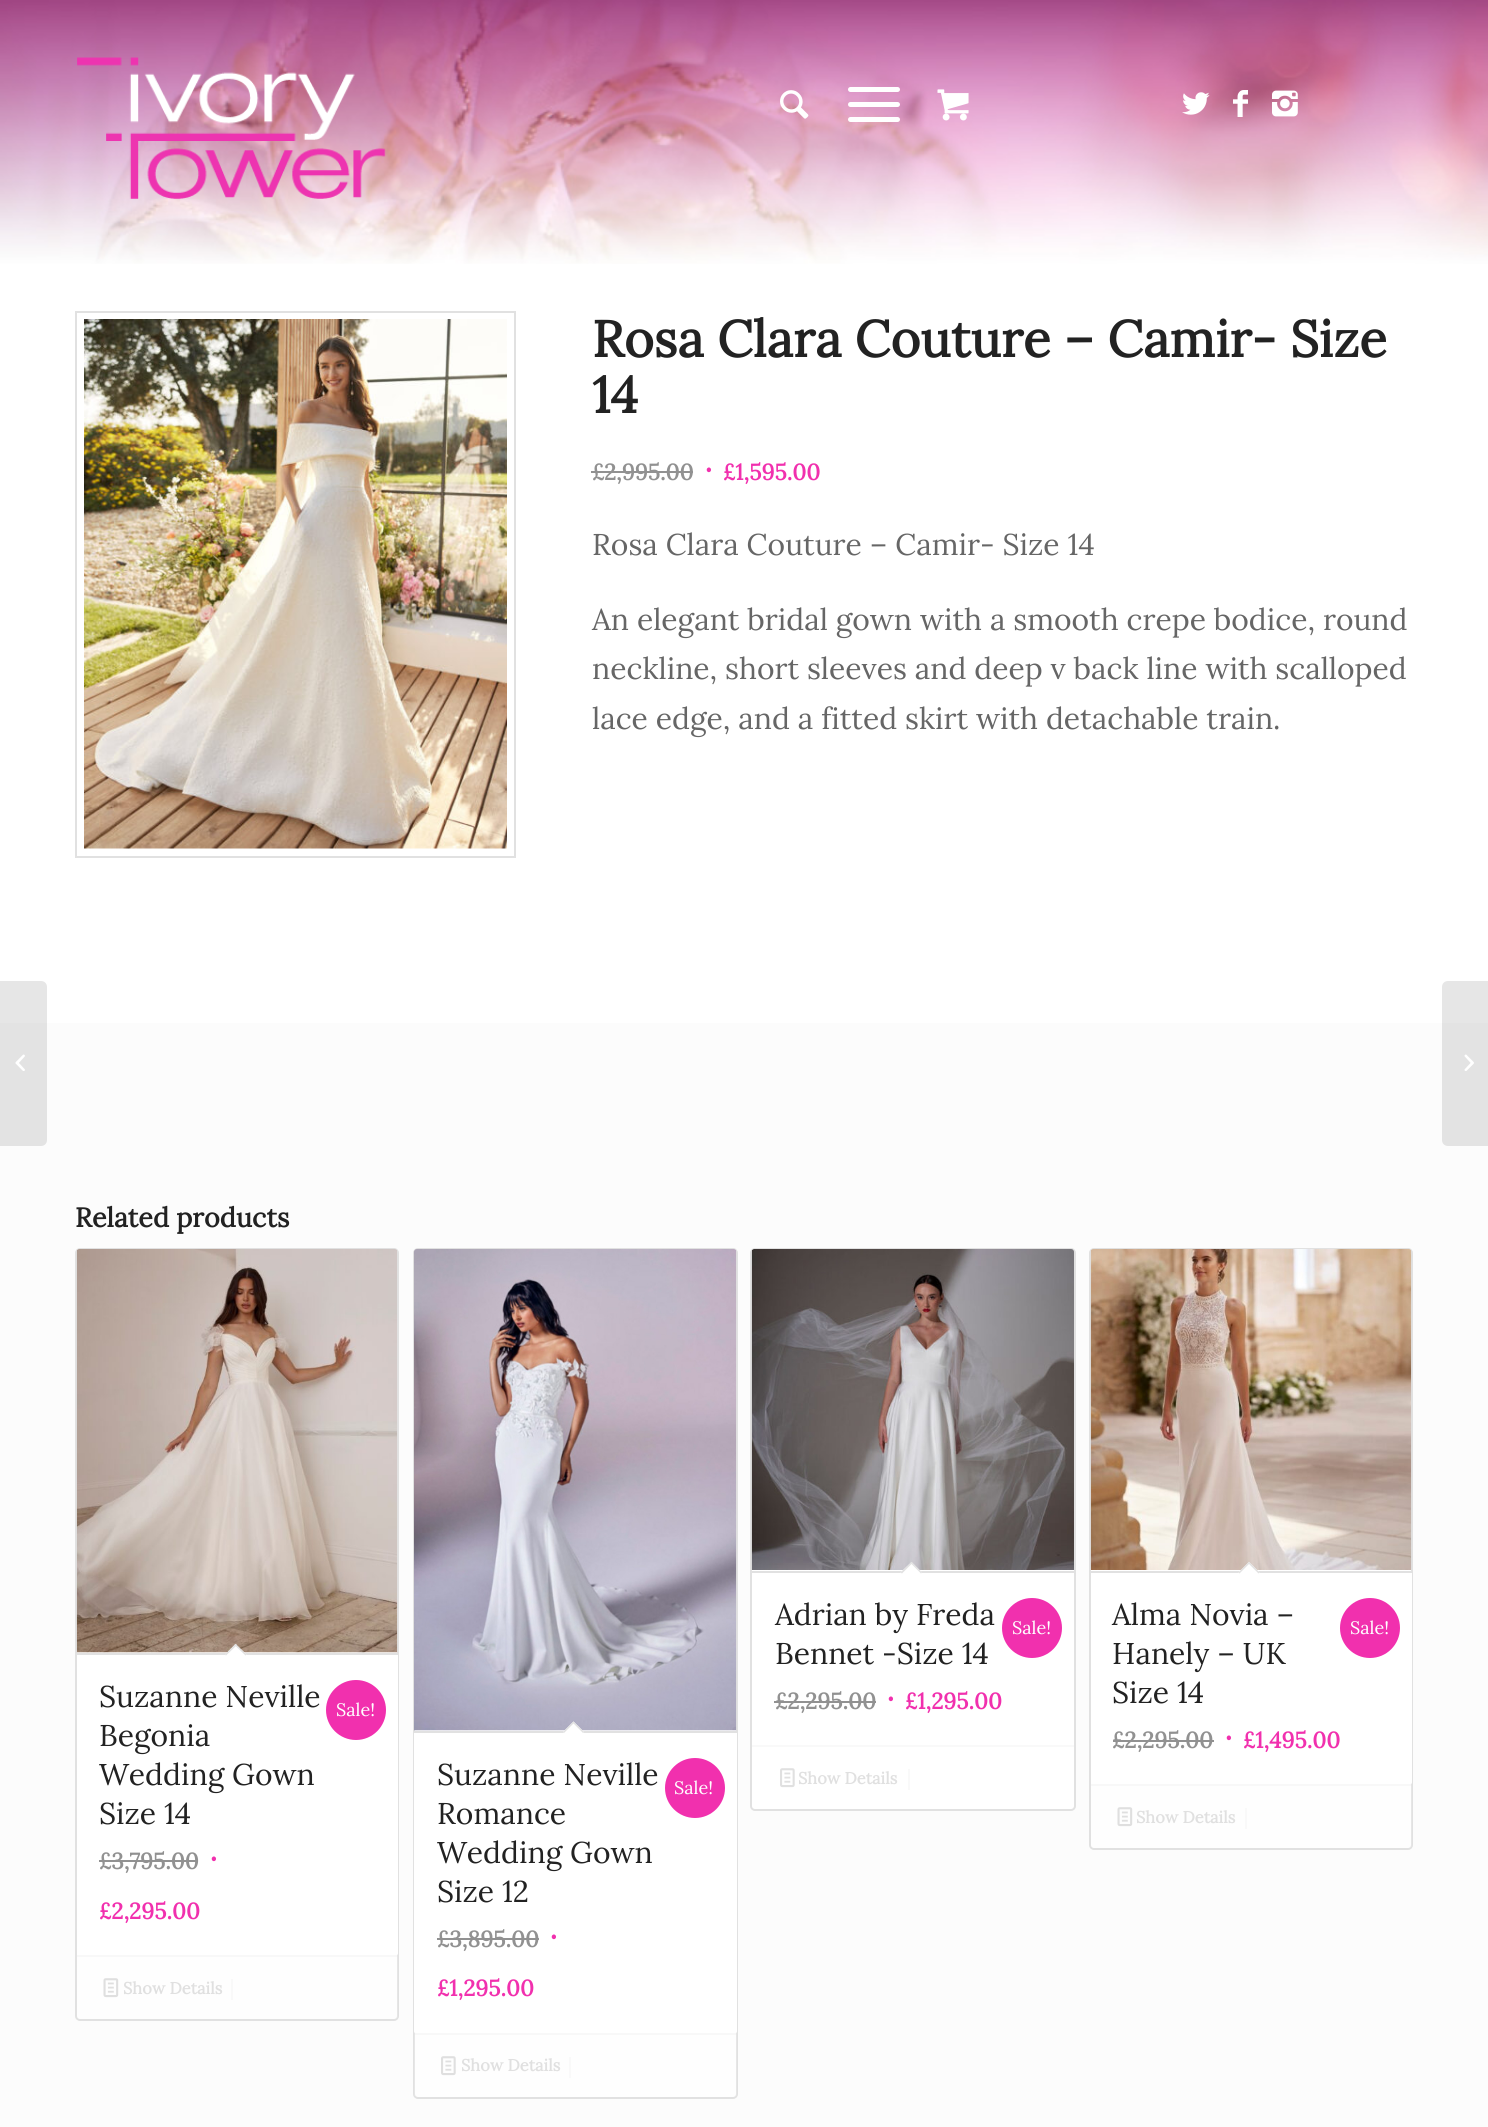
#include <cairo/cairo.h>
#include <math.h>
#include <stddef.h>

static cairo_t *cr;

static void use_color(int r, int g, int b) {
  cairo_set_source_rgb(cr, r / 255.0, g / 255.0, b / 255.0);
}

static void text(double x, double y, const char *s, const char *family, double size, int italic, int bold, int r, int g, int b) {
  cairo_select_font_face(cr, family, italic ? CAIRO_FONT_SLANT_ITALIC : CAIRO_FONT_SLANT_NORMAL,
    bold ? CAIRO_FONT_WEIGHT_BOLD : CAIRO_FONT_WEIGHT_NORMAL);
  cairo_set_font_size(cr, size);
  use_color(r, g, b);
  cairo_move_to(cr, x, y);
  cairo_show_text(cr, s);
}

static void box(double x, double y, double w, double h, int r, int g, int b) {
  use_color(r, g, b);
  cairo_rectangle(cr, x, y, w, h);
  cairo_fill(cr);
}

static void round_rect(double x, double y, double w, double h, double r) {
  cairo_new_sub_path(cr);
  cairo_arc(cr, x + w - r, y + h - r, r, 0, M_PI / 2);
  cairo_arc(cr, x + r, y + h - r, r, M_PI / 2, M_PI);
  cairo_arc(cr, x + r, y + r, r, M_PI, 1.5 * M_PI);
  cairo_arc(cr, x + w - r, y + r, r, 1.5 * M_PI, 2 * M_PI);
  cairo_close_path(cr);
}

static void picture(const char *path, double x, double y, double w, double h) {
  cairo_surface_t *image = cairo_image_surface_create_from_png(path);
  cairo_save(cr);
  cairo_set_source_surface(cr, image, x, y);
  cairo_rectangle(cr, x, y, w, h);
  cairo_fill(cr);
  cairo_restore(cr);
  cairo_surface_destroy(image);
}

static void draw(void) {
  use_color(255, 255, 255);
  cairo_paint(cr);
  picture("img_01.png", 0, 0, 1488, 264);
  picture("img_02.png", 77, 57, 309, 142);
  picture("img_03.png", 780, 90, 29, 29);
  use_color(255, 255, 255);
  round_rect(848, 102, 52, 5, 2.5);
  cairo_fill(cr);
  round_rect(848, 87, 52, 5, 2.5);
  cairo_fill(cr);
  round_rect(848, 117, 52, 5, 2.5);
  cairo_fill(cr);
  picture("img_04.png", 937, 89, 32, 32);
  picture("img_05.png", 1182, 92, 28, 23);
  picture("img_06.png", 1233, 90, 15, 27);
  picture("img_07.png", 1272, 90, 26, 27);
  box(0, 1023, 1488, 1104, 252, 252, 252);
  cairo_set_source_rgba(cr, 0, 0, 0, 0.1);
  cairo_new_path(cr);
  cairo_move_to(cr, 0, 981);
  cairo_line_to(cr, 41, 981);
  cairo_curve_to(cr, 44.5, 981, 47, 983.5, 47, 987);
  cairo_line_to(cr, 47, 1140);
  cairo_curve_to(cr, 47, 1143.5, 44.5, 1146, 41, 1146);
  cairo_line_to(cr, 0, 1146);
  cairo_close_path(cr);
  cairo_fill(cr);
  picture("img_08.png", 15, 1054, 10, 17);
  cairo_rectangle(cr, 76, 312, 439, 545);
  use_color(225, 225, 225);
  cairo_stroke(cr);
  picture("img_09.png", 84, 319, 423, 530);
  box(591, 471, 14, 2, 145, 145, 145);
  box(605, 471, 88, 2, 145, 145, 145);
  use_color(255, 255, 255);
  round_rect(76, 1249, 322, 771, 4);
  cairo_fill_preserve(cr);
  use_color(225, 225, 225);
  cairo_stroke(cr);
  picture("img_10.png", 76, 1249, 322, 404);
  use_color(255, 255, 255);
  cairo_new_path(cr);
  cairo_move_to(cr, 77, 1653);
  cairo_line_to(cr, 398, 1653);
  cairo_line_to(cr, 398, 1953.5);
  cairo_curve_to(cr, 398, 1954.5, 397.5, 1955, 396.5, 1955);
  cairo_line_to(cr, 78.5, 1955);
  cairo_curve_to(cr, 77.5, 1955, 77, 1954.5, 77, 1953.5);
  cairo_close_path(cr);
  cairo_fill(cr);
  box(77, 1653, 321, 2, 225, 225, 225);
  use_color(255, 255, 255);
  cairo_new_path(cr);
  cairo_move_to(cr, 235.5, 1644);
  cairo_line_to(cr, 246.5, 1654.5);
  cairo_line_to(cr, 235.5, 1665);
  cairo_line_to(cr, 225, 1654.5);
  cairo_close_path(cr);
  cairo_fill(cr);
  use_color(225, 225, 225);
  cairo_new_path(cr);
  cairo_move_to(cr, 235.5, 1644);
  cairo_line_to(cr, 246.5, 1654.5);
  cairo_line_to(cr, 245.5, 1655.5);
  cairo_line_to(cr, 234.5, 1645);
  cairo_close_path(cr);
  cairo_fill(cr);
  cairo_new_path(cr);
  cairo_move_to(cr, 235.5, 1644);
  cairo_line_to(cr, 237, 1645);
  cairo_line_to(cr, 226, 1655.5);
  cairo_line_to(cr, 225, 1654.5);
  cairo_close_path(cr);
  cairo_fill(cr);
  use_color(241, 48, 174);
  cairo_arc(cr, 356, 1710, 30, 0, 2 * M_PI);
  cairo_fill(cr);
  box(99, 1860, 99, 2, 145, 145, 145);
  cairo_set_source_rgba(cr, 0.988, 0.988, 0.988, 0.2);
  cairo_new_path(cr);
  cairo_move_to(cr, 77, 1955);
  cairo_line_to(cr, 398, 1955);
  cairo_line_to(cr, 398, 2016);
  cairo_curve_to(cr, 398, 2017.5, 396.5, 2019, 395, 2019);
  cairo_line_to(cr, 80, 2019);
  cairo_curve_to(cr, 78.5, 2019, 77, 2017.5, 77, 2016);
  cairo_close_path(cr);
  cairo_fill(cr);
  cairo_set_source_rgba(cr, 0.882, 0.882, 0.882, 0.2);
  cairo_rectangle(cr, 77, 1955, 321, 2);
  cairo_fill(cr);
  picture("img_11.png", 103, 1978, 16, 20);
  box(231, 1979, 2, 21, 249, 249, 249);
  use_color(255, 255, 255);
  round_rect(414, 1249, 323, 849, 4);
  cairo_fill_preserve(cr);
  use_color(225, 225, 225);
  cairo_stroke(cr);
  picture("img_12.png", 414, 1249, 323, 482);
  use_color(255, 255, 255);
  cairo_new_path(cr);
  cairo_move_to(cr, 414, 1731);
  cairo_line_to(cr, 737, 1731);
  cairo_line_to(cr, 737, 2031.5);
  cairo_curve_to(cr, 737, 2032.5, 736.5, 2033, 735.5, 2033);
  cairo_line_to(cr, 415.5, 2033);
  cairo_curve_to(cr, 414.5, 2033, 414, 2032.5, 414, 2031.5);
  cairo_close_path(cr);
  cairo_fill(cr);
  box(414, 1731, 323, 2, 225, 225, 225);
  use_color(255, 255, 255);
  cairo_new_path(cr);
  cairo_move_to(cr, 573.5, 1721.5);
  cairo_line_to(cr, 584, 1732);
  cairo_line_to(cr, 573.5, 1742.5);
  cairo_line_to(cr, 563, 1732);
  cairo_close_path(cr);
  cairo_fill(cr);
  use_color(225, 225, 225);
  cairo_new_path(cr);
  cairo_move_to(cr, 573.5, 1721.5);
  cairo_line_to(cr, 584, 1732);
  cairo_line_to(cr, 583, 1733);
  cairo_line_to(cr, 572.5, 1722.5);
  cairo_close_path(cr);
  cairo_fill(cr);
  cairo_new_path(cr);
  cairo_move_to(cr, 573.5, 1721.5);
  cairo_line_to(cr, 574.5, 1722.5);
  cairo_line_to(cr, 564, 1733);
  cairo_line_to(cr, 563, 1732);
  cairo_close_path(cr);
  cairo_fill(cr);
  use_color(241, 48, 174);
  cairo_arc(cr, 695, 1788, 30, 0, 2 * M_PI);
  cairo_fill(cr);
  box(437, 1938, 102, 2, 145, 145, 145);
  cairo_set_source_rgba(cr, 0.988, 0.988, 0.988, 0.2);
  cairo_new_path(cr);
  cairo_move_to(cr, 414, 2033);
  cairo_line_to(cr, 737, 2033);
  cairo_line_to(cr, 737, 2094);
  cairo_curve_to(cr, 737, 2095.5, 735.5, 2097, 734, 2097);
  cairo_line_to(cr, 417, 2097);
  cairo_curve_to(cr, 415.5, 2097, 414, 2095.5, 414, 2094);
  cairo_close_path(cr);
  cairo_fill(cr);
  cairo_set_source_rgba(cr, 0.882, 0.882, 0.882, 0.2);
  cairo_rectangle(cr, 414, 2033, 323, 2);
  cairo_fill(cr);
  picture("img_13.png", 441, 2056, 15, 20);
  box(569, 2057, 2, 21, 249, 249, 249);
  use_color(255, 255, 255);
  round_rect(751, 1249, 324, 561, 4);
  cairo_fill_preserve(cr);
  use_color(225, 225, 225);
  cairo_stroke(cr);
  picture("img_14.png", 751, 1249, 323, 321);
  box(752, 1571, 322, 2, 225, 225, 225);
  use_color(255, 255, 255);
  cairo_new_path(cr);
  cairo_move_to(cr, 911.5, 1562);
  cairo_line_to(cr, 922, 1572.5);
  cairo_line_to(cr, 911.5, 1583);
  cairo_line_to(cr, 900.5, 1572.5);
  cairo_close_path(cr);
  cairo_fill(cr);
  use_color(225, 225, 225);
  cairo_new_path(cr);
  cairo_move_to(cr, 911.5, 1562);
  cairo_line_to(cr, 922, 1572.5);
  cairo_line_to(cr, 921, 1573.5);
  cairo_line_to(cr, 910.5, 1563);
  cairo_close_path(cr);
  cairo_fill(cr);
  cairo_new_path(cr);
  cairo_move_to(cr, 911.5, 1562);
  cairo_line_to(cr, 912.5, 1563);
  cairo_line_to(cr, 902, 1573.5);
  cairo_line_to(cr, 900.5, 1572.5);
  cairo_close_path(cr);
  cairo_fill(cr);
  use_color(241, 48, 174);
  cairo_arc(cr, 1032, 1628, 30, 0, 2 * M_PI);
  cairo_fill(cr);
  box(774, 1701, 102, 2, 145, 145, 145);
  box(752, 1745, 322, 2, 249, 249, 249);
  picture("img_15.png", 780, 1768, 15, 20);
  box(908, 1769, 2, 21, 249, 249, 249);
  use_color(255, 255, 255);
  round_rect(1090, 1249, 322, 600, 4);
  cairo_fill_preserve(cr);
  use_color(225, 225, 225);
  cairo_stroke(cr);
  picture("img_16.png", 1090, 1249, 322, 321);
  use_color(255, 255, 255);
  cairo_new_path(cr);
  cairo_move_to(cr, 1091, 1571);
  cairo_line_to(cr, 1412, 1571);
  cairo_line_to(cr, 1412, 1782.5);
  cairo_curve_to(cr, 1412, 1783.5, 1411.5, 1784, 1410.5, 1784);
  cairo_line_to(cr, 1092.5, 1784);
  cairo_curve_to(cr, 1091.5, 1784, 1091, 1783.5, 1091, 1782.5);
  cairo_close_path(cr);
  cairo_fill(cr);
  box(1091, 1571, 321, 2, 225, 225, 225);
  use_color(255, 255, 255);
  cairo_new_path(cr);
  cairo_move_to(cr, 1249, 1562);
  cairo_line_to(cr, 1259.5, 1572.5);
  cairo_line_to(cr, 1249, 1583);
  cairo_line_to(cr, 1238.5, 1572.5);
  cairo_close_path(cr);
  cairo_fill(cr);
  use_color(225, 225, 225);
  cairo_new_path(cr);
  cairo_move_to(cr, 1249, 1562);
  cairo_line_to(cr, 1259.5, 1572.5);
  cairo_line_to(cr, 1258.5, 1573.5);
  cairo_line_to(cr, 1248, 1563);
  cairo_close_path(cr);
  cairo_fill(cr);
  cairo_new_path(cr);
  cairo_move_to(cr, 1249, 1562);
  cairo_line_to(cr, 1250, 1563);
  cairo_line_to(cr, 1239.5, 1573.5);
  cairo_line_to(cr, 1238.5, 1572.5);
  cairo_close_path(cr);
  cairo_fill(cr);
  use_color(241, 48, 174);
  cairo_arc(cr, 1370, 1628, 30, 0, 2 * M_PI);
  cairo_fill(cr);
  box(1113, 1740, 101, 2, 145, 145, 145);
  cairo_set_source_rgba(cr, 0.988, 0.988, 0.988, 0.2);
  cairo_new_path(cr);
  cairo_move_to(cr, 1091, 1784);
  cairo_line_to(cr, 1412, 1784);
  cairo_line_to(cr, 1412, 1845);
  cairo_curve_to(cr, 1412, 1846.5, 1410.5, 1848, 1409, 1848);
  cairo_line_to(cr, 1094, 1848);
  cairo_curve_to(cr, 1092.5, 1848, 1091, 1846.5, 1091, 1845);
  cairo_close_path(cr);
  cairo_fill(cr);
  cairo_set_source_rgba(cr, 0.882, 0.882, 0.882, 0.2);
  cairo_rectangle(cr, 1091, 1784, 321, 2);
  cairo_fill(cr);
  picture("img_11.png", 1117, 1807, 16, 20);
  box(1245, 1808, 2, 21, 249, 249, 249);
  cairo_set_source_rgba(cr, 0, 0, 0, 0.1);
  cairo_new_path(cr);
  cairo_move_to(cr, 1448, 981);
  cairo_line_to(cr, 1488, 981);
  cairo_line_to(cr, 1488, 1146);
  cairo_line_to(cr, 1448, 1146);
  cairo_curve_to(cr, 1444.5, 1146, 1442, 1143.5, 1442, 1140);
  cairo_line_to(cr, 1442, 987);
  cairo_curve_to(cr, 1442, 983.5, 1444.5, 981, 1448, 981);
  cairo_close_path(cr);
  cairo_fill(cr);
  picture("img_17.png", 1464, 1054, 10, 17);
  text(592, 357, "Rosa Clara Couture – Camir- Size", "Lora", 51, 0, 1, 34, 34, 34);
  text(592, 413, "14", "Lora", 51, 0, 1, 34, 34, 34);
  text(592, 480, "£", "Lora", 22.5, 0, 1, 145, 145, 145);
  text(604, 480, "2,995.00", "Lora", 22.5, 0, 1, 145, 145, 145);
  text(704, 480, "∙", "Lora", 30, 0, 1, 241, 48, 174);
  text(723, 480, "£1,595.00", "Lora", 22.5, 0, 1, 241, 48, 174);
  text(592, 555, "Rosa Clara Couture – Camir- Size 14", "Lora", 30, 0, 0, 102, 102, 102);
  text(592, 630, "An elegant bridal gown with a smooth crepe bodice, round", "Lora", 30, 0, 0, 102, 102, 102);
  text(592, 679, "neckline, short sleeves and deep v back line with scalloped", "Lora", 30, 0, 0, 102, 102, 102);
  text(592, 729, "lace edge, and a fitted skirt with detachable train.", "Lora", 30, 0, 0, 102, 102, 102);
  text(75, 1227, "Related products", "Lora", 27, 0, 1, 34, 34, 34);
  text(99, 1707, "Suzanne Neville", "Lora", 30, 0, 0, 34, 34, 34);
  text(99, 1746, "Begonia", "Lora", 30, 0, 0, 34, 34, 34);
  text(99, 1785, "Wedding Gown", "Lora", 30, 0, 0, 34, 34, 34);
  text(99, 1824, "Size 14", "Lora", 30, 0, 0, 34, 34, 34);
  text(336, 1716, "Sale!", "Lora", 18, 0, 0, 255, 255, 255);
  text(99, 1869, "£3,795.00", "Lora", 22.5, 0, 1, 145, 145, 145);
  text(209, 1869, "∙", "Lora", 30, 0, 1, 241, 48, 174);
  text(99, 1919, "£2,295.00", "Lora", 22.5, 0, 1, 241, 48, 174);
  text(123, 1994, "Show Details", "Lora", 16.5, 0, 1, 224, 224, 224);
  text(437, 1785, "Suzanne Neville", "Lora", 30, 0, 0, 34, 34, 34);
  text(437, 1824, "Romance", "Lora", 30, 0, 0, 34, 34, 34);
  text(437, 1863, "Wedding Gown", "Lora", 30, 0, 0, 34, 34, 34);
  text(437, 1902, "Size 12", "Lora", 30, 0, 0, 34, 34, 34);
  text(674, 1794, "Sale!", "Lora", 18, 0, 0, 255, 255, 255);
  text(437, 1947, "£3,895.00", "Lora", 22.5, 0, 1, 145, 145, 145);
  text(549, 1947, "∙", "Lora", 30, 0, 1, 241, 48, 174);
  text(437, 1996, "£1,295.00", "Lora", 22.5, 0, 1, 241, 48, 174);
  text(461, 2071, "Show Details", "Lora", 16.5, 0, 1, 224, 224, 224);
  text(775, 1625, "Adrian by Freda", "Lora", 30, 0, 0, 34, 34, 34);
  text(775, 1664, "Bennet -Size 14", "Lora", 30, 0, 0, 34, 34, 34);
  text(1012, 1634, "Sale!", "Lora", 18, 0, 0, 255, 255, 255);
  text(775, 1709, "£2,295.00", "Lora", 22.5, 0, 1, 145, 145, 145);
  text(886, 1709, "∙", "Lora", 30, 0, 1, 241, 48, 174);
  text(905, 1709, "£1,295.00", "Lora", 22.5, 0, 1, 241, 48, 174);
  text(798, 1784, "Show Details", "Lora", 16.5, 0, 1, 224, 224, 224);
  text(1112, 1625, "Alma Novia –", "Lora", 30, 0, 0, 34, 34, 34);
  text(1112, 1664, "Hanely – UK", "Lora", 30, 0, 0, 34, 34, 34);
  text(1112, 1703, "Size 14", "Lora", 30, 0, 0, 34, 34, 34);
  text(1350, 1634, "Sale!", "Lora", 18, 0, 0, 255, 255, 255);
  text(1112, 1748, "£2,295.00", "Lora", 22.5, 0, 1, 145, 145, 145);
  text(1224, 1748, "∙", "Lora", 30, 0, 1, 241, 48, 174);
  text(1243, 1748, "£1,495.00", "Lora", 22.5, 0, 1, 241, 48, 174);
  text(1136, 1823, "Show Details", "Lora", 16.5, 0, 1, 224, 224, 224);
}

int main(void) {
  cairo_surface_t *surface = cairo_image_surface_create(CAIRO_FORMAT_RGB24, 1488, 2127);
  cr = cairo_create(surface);
  cairo_font_options_t *options = cairo_font_options_create();
  cairo_font_options_set_hint_metrics(options, CAIRO_HINT_METRICS_OFF);
  cairo_font_options_set_hint_style(options, CAIRO_HINT_STYLE_NONE);
  cairo_set_font_options(cr, options);
  cairo_set_miter_limit(cr, 4);
  draw();
  cairo_surface_write_to_png(surface, "out.png");
  cairo_font_options_destroy(options);
  cairo_destroy(cr);
  cairo_surface_destroy(surface);
  return 0;
}
